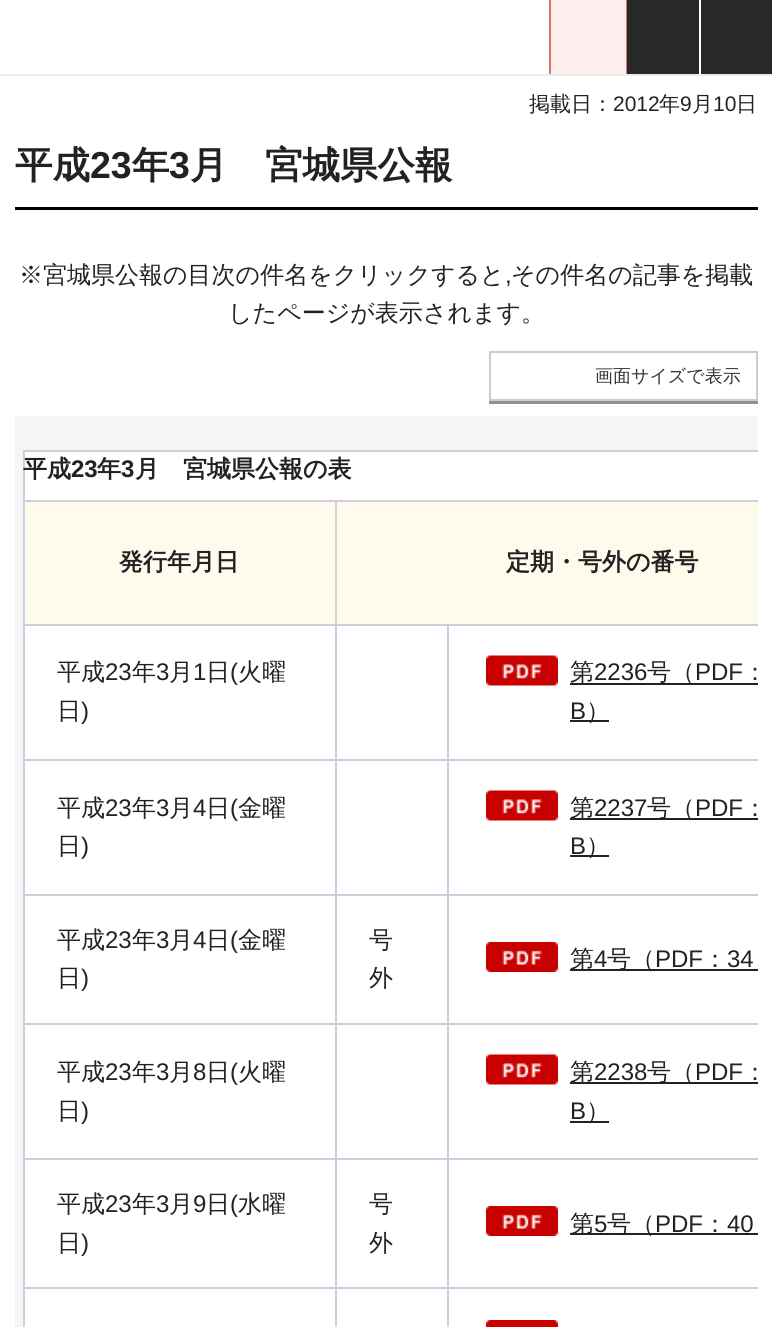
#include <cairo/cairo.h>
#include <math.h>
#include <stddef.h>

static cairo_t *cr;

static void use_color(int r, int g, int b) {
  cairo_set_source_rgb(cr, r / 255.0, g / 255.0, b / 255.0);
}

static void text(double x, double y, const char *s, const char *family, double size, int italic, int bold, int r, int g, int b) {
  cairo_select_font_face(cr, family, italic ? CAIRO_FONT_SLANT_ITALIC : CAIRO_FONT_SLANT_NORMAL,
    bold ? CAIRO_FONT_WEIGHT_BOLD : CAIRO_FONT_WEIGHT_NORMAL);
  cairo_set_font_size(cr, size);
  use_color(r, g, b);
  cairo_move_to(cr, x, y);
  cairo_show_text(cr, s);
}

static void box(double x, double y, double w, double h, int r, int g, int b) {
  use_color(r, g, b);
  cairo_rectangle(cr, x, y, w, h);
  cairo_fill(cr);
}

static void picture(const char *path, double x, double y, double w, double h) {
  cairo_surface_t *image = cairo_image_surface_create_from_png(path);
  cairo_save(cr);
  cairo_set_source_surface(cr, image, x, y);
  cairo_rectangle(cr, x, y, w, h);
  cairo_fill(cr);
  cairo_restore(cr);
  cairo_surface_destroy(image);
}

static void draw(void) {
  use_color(255, 255, 255);
  cairo_paint(cr);
  box(0, 74, 772, 2, 236, 236, 236);
  box(626, 0, 1, 74, 205, 121, 112);
  box(549, 0, 2, 74, 205, 121, 112);
  box(551, 0, 75, 74, 255, 236, 236);
  box(627, 0, 72, 74, 40, 40, 40);
  box(701, 0, 71, 74, 40, 40, 40);
  box(15, 207, 743, 3, 0, 0, 0);
  use_color(145, 145, 142);
  cairo_new_path(cr);
  cairo_move_to(cr, 489, 400);
  cairo_line_to(cr, 489, 404);
  cairo_line_to(cr, 758, 404);
  cairo_line_to(cr, 758, 354);
  cairo_line_to(cr, 758, 400);
  cairo_close_path(cr);
  cairo_fill(cr);
  cairo_rectangle(cr, 490, 352, 267, 48);
  use_color(204, 204, 204);
  cairo_stroke(cr);
  box(15, 416, 743, 911, 245, 245, 245);
  box(25, 452, 733, 875, 255, 255, 255);
  box(23, 450, 735, 2, 205, 207, 222);
  box(23, 450, 2, 877, 205, 207, 222);
  box(25, 502, 310, 122, 254, 251, 236);
  box(335, 500, 423, 2, 205, 207, 222);
  box(447, 624, 311, 2, 205, 207, 222);
  box(447, 759, 311, 2, 205, 207, 222);
  box(447, 894, 311, 2, 205, 207, 222);
  box(447, 1023, 311, 2, 205, 207, 222);
  box(447, 1158, 311, 2, 205, 207, 222);
  box(447, 1287, 311, 2, 205, 207, 222);
  box(447, 1287, 2, 40, 205, 207, 222);
  box(335, 1287, 114, 2, 205, 207, 222);
  box(447, 1158, 2, 131, 205, 207, 222);
  box(335, 1158, 114, 2, 205, 207, 222);
  box(447, 1023, 2, 137, 205, 207, 222);
  box(335, 1023, 114, 2, 205, 207, 222);
  box(447, 894, 2, 131, 205, 207, 222);
  box(335, 894, 114, 2, 205, 207, 222);
  box(447, 759, 2, 137, 205, 207, 222);
  box(335, 759, 114, 2, 205, 207, 222);
  box(447, 624, 2, 137, 205, 207, 222);
  box(335, 624, 114, 2, 205, 207, 222);
  box(335, 1287, 2, 40, 205, 207, 222);
  box(23, 1287, 313, 2, 205, 207, 222);
  box(335, 1158, 2, 131, 205, 207, 222);
  box(23, 1158, 313, 2, 205, 207, 222);
  box(335, 1023, 2, 137, 205, 207, 222);
  box(23, 1023, 313, 2, 205, 207, 222);
  box(335, 894, 2, 131, 205, 207, 222);
  box(23, 894, 313, 2, 205, 207, 222);
  box(335, 759, 2, 137, 205, 207, 222);
  box(23, 759, 313, 2, 205, 207, 222);
  box(335, 624, 2, 137, 205, 207, 222);
  box(23, 624, 313, 2, 205, 207, 222);
  box(335, 500, 2, 126, 205, 207, 222);
  box(23, 500, 313, 2, 205, 207, 222);
  box(337, 502, 421, 122, 254, 251, 236);
  picture("img_01.png", 486, 655, 72, 31);
  box(570, 683, 188, 2, 34, 34, 34);
  box(570, 720, 39, 2, 34, 34, 34);
  picture("img_01.png", 486, 790, 72, 31);
  box(570, 818, 188, 2, 34, 34, 34);
  box(570, 855, 39, 2, 34, 34, 34);
  picture("img_02.png", 486, 942, 72, 30);
  box(570, 969, 188, 2, 34, 34, 34);
  picture("img_01.png", 486, 1054, 72, 31);
  box(570, 1082, 188, 2, 34, 34, 34);
  box(570, 1121, 39, 2, 34, 34, 34);
  picture("img_02.png", 486, 1206, 72, 30);
  box(570, 1233, 188, 2, 34, 34, 34);
  picture("img_03.png", 486, 1320, 72, 7);
  text(529, 111, "掲載日：", "WenQuanYi Zen Hei Medium", 21, 0, 0, 34, 34, 34);
  text(613, 111, "2012", "Liberation Sans", 21, 0, 0, 34, 34, 34);
  text(659, 111, "年", "WenQuanYi Zen Hei Medium", 21, 0, 0, 34, 34, 34);
  text(680, 111, "9", "Liberation Sans", 21, 0, 0, 34, 34, 34);
  text(692, 111, "月", "WenQuanYi Zen Hei Medium", 21, 0, 0, 34, 34, 34);
  text(713, 111, "10", "Liberation Sans", 21, 0, 0, 34, 34, 34);
  text(736, 111, "日", "WenQuanYi Zen Hei Medium", 21, 0, 0, 34, 34, 34);
  text(15, 178, "平成", "WenQuanYi Zen Hei", 37.5, 0, 1, 34, 34, 34);
  text(90, 178, "23", "Liberation Sans", 37.5, 0, 1, 34, 34, 34);
  text(132, 178, "年", "WenQuanYi Zen Hei", 37.5, 0, 1, 34, 34, 34);
  text(169, 178, "3", "Liberation Sans", 37.5, 0, 1, 34, 34, 34);
  text(190, 178, "月　宮城県公報", "WenQuanYi Zen Hei", 37.5, 0, 1, 34, 34, 34);
  text(19, 283, "※宮城県公報の目次の件名をクリックすると", "WenQuanYi Zen Hei Medium", 24, 0, 0, 34, 34, 34);
  text(505, 283, ",", "Liberation Sans", 24, 0, 0, 34, 34, 34);
  text(511, 283, "その件名の記事を掲載", "WenQuanYi Zen Hei Medium", 24, 0, 0, 34, 34, 34);
  text(228, 321, "したページが表示されます。", "WenQuanYi Zen Hei Medium", 24, 0, 0, 34, 34, 34);
  text(595, 382, "画面サイズで表示", "WenQuanYi Zen Hei Medium", 18, 0, 0, 51, 51, 51);
  text(23, 477, "平成", "WenQuanYi Zen Hei", 24, 0, 1, 34, 34, 34);
  text(71, 477, "23", "Liberation Sans", 24, 0, 1, 34, 34, 34);
  text(97, 477, "年", "WenQuanYi Zen Hei", 24, 0, 1, 34, 34, 34);
  text(121, 477, "3", "Liberation Sans", 24, 0, 1, 34, 34, 34);
  text(135, 477, "月　宮城県公報の表", "WenQuanYi Zen Hei", 24, 0, 1, 34, 34, 34);
  text(119, 570, "発行年月日", "WenQuanYi Zen Hei", 24, 0, 1, 34, 34, 34);
  text(506, 570, "定期・号外の番号", "WenQuanYi Zen Hei", 24, 0, 1, 34, 34, 34);
  text(57, 680, "平成", "WenQuanYi Zen Hei Medium", 24, 0, 0, 34, 34, 34);
  text(105, 680, "23", "Liberation Sans", 24, 0, 0, 34, 34, 34);
  text(132, 680, "年", "WenQuanYi Zen Hei Medium", 24, 0, 0, 34, 34, 34);
  text(156, 680, "3", "Liberation Sans", 24, 0, 0, 34, 34, 34);
  text(169, 680, "月", "WenQuanYi Zen Hei Medium", 24, 0, 0, 34, 34, 34);
  text(193, 680, "1", "Liberation Sans", 24, 0, 0, 34, 34, 34);
  text(206, 680, "日", "WenQuanYi Zen Hei Medium", 24, 0, 0, 34, 34, 34);
  text(230, 680, "(", "Liberation Sans", 24, 0, 0, 34, 34, 34);
  text(238, 680, "火曜", "WenQuanYi Zen Hei Medium", 24, 0, 0, 34, 34, 34);
  text(57, 719, "日", "WenQuanYi Zen Hei Medium", 24, 0, 0, 34, 34, 34);
  text(81, 719, ")", "Liberation Sans", 24, 0, 0, 34, 34, 34);
  text(570, 680, "第", "WenQuanYi Zen Hei Medium", 24, 0, 0, 34, 34, 34);
  text(594, 680, "2236", "Liberation Sans", 24, 0, 0, 34, 34, 34);
  text(647, 680, "号（", "WenQuanYi Zen Hei Medium", 24, 0, 0, 34, 34, 34);
  text(695, 680, "PDF", "Liberation Sans", 24, 0, 0, 34, 34, 34);
  text(743, 680, "：", "WenQuanYi Zen Hei Medium", 24, 0, 0, 34, 34, 34);
  text(570, 719, "B", "Liberation Sans", 24, 0, 0, 34, 34, 34);
  text(586, 719, "）", "WenQuanYi Zen Hei Medium", 24, 0, 0, 34, 34, 34);
  text(57, 816, "平成", "WenQuanYi Zen Hei Medium", 24, 0, 0, 34, 34, 34);
  text(105, 816, "23", "Liberation Sans", 24, 0, 0, 34, 34, 34);
  text(132, 816, "年", "WenQuanYi Zen Hei Medium", 24, 0, 0, 34, 34, 34);
  text(156, 816, "3", "Liberation Sans", 24, 0, 0, 34, 34, 34);
  text(169, 816, "月", "WenQuanYi Zen Hei Medium", 24, 0, 0, 34, 34, 34);
  text(193, 816, "4", "Liberation Sans", 24, 0, 0, 34, 34, 34);
  text(206, 816, "日", "WenQuanYi Zen Hei Medium", 24, 0, 0, 34, 34, 34);
  text(230, 816, "(", "Liberation Sans", 24, 0, 0, 34, 34, 34);
  text(238, 816, "金曜", "WenQuanYi Zen Hei Medium", 24, 0, 0, 34, 34, 34);
  text(57, 854, "日", "WenQuanYi Zen Hei Medium", 24, 0, 0, 34, 34, 34);
  text(81, 854, ")", "Liberation Sans", 24, 0, 0, 34, 34, 34);
  text(570, 816, "第", "WenQuanYi Zen Hei Medium", 24, 0, 0, 34, 34, 34);
  text(594, 816, "2237", "Liberation Sans", 24, 0, 0, 34, 34, 34);
  text(647, 816, "号（", "WenQuanYi Zen Hei Medium", 24, 0, 0, 34, 34, 34);
  text(695, 816, "PDF", "Liberation Sans", 24, 0, 0, 34, 34, 34);
  text(743, 816, "：", "WenQuanYi Zen Hei Medium", 24, 0, 0, 34, 34, 34);
  text(570, 854, "B", "Liberation Sans", 24, 0, 0, 34, 34, 34);
  text(586, 854, "）", "WenQuanYi Zen Hei Medium", 24, 0, 0, 34, 34, 34);
  text(57, 948, "平成", "WenQuanYi Zen Hei Medium", 24, 0, 0, 34, 34, 34);
  text(105, 948, "23", "Liberation Sans", 24, 0, 0, 34, 34, 34);
  text(132, 948, "年", "WenQuanYi Zen Hei Medium", 24, 0, 0, 34, 34, 34);
  text(156, 948, "3", "Liberation Sans", 24, 0, 0, 34, 34, 34);
  text(169, 948, "月", "WenQuanYi Zen Hei Medium", 24, 0, 0, 34, 34, 34);
  text(193, 948, "4", "Liberation Sans", 24, 0, 0, 34, 34, 34);
  text(206, 948, "日", "WenQuanYi Zen Hei Medium", 24, 0, 0, 34, 34, 34);
  text(230, 948, "(", "Liberation Sans", 24, 0, 0, 34, 34, 34);
  text(238, 948, "金曜", "WenQuanYi Zen Hei Medium", 24, 0, 0, 34, 34, 34);
  text(57, 986, "日", "WenQuanYi Zen Hei Medium", 24, 0, 0, 34, 34, 34);
  text(81, 986, ")", "Liberation Sans", 24, 0, 0, 34, 34, 34);
  text(369, 948, "号", "WenQuanYi Zen Hei Medium", 24, 0, 0, 34, 34, 34);
  text(369, 986, "外", "WenQuanYi Zen Hei Medium", 24, 0, 0, 34, 34, 34);
  text(570, 967, "第", "WenQuanYi Zen Hei Medium", 24, 0, 0, 34, 34, 34);
  text(594, 967, "4", "Liberation Sans", 24, 0, 0, 34, 34, 34);
  text(607, 967, "号（", "WenQuanYi Zen Hei Medium", 24, 0, 0, 34, 34, 34);
  text(655, 967, "PDF", "Liberation Sans", 24, 0, 0, 34, 34, 34);
  text(703, 967, "：", "WenQuanYi Zen Hei Medium", 24, 0, 0, 34, 34, 34);
  text(727, 967, "34", "Liberation Sans", 24, 0, 0, 34, 34, 34);
  text(57, 1080, "平成", "WenQuanYi Zen Hei Medium", 24, 0, 0, 34, 34, 34);
  text(105, 1080, "23", "Liberation Sans", 24, 0, 0, 34, 34, 34);
  text(132, 1080, "年", "WenQuanYi Zen Hei Medium", 24, 0, 0, 34, 34, 34);
  text(156, 1080, "3", "Liberation Sans", 24, 0, 0, 34, 34, 34);
  text(169, 1080, "月", "WenQuanYi Zen Hei Medium", 24, 0, 0, 34, 34, 34);
  text(193, 1080, "8", "Liberation Sans", 24, 0, 0, 34, 34, 34);
  text(206, 1080, "日", "WenQuanYi Zen Hei Medium", 24, 0, 0, 34, 34, 34);
  text(230, 1080, "(", "Liberation Sans", 24, 0, 0, 34, 34, 34);
  text(238, 1080, "火曜", "WenQuanYi Zen Hei Medium", 24, 0, 0, 34, 34, 34);
  text(57, 1119, "日", "WenQuanYi Zen Hei Medium", 24, 0, 0, 34, 34, 34);
  text(81, 1119, ")", "Liberation Sans", 24, 0, 0, 34, 34, 34);
  text(570, 1080, "第", "WenQuanYi Zen Hei Medium", 24, 0, 0, 34, 34, 34);
  text(594, 1080, "2238", "Liberation Sans", 24, 0, 0, 34, 34, 34);
  text(647, 1080, "号（", "WenQuanYi Zen Hei Medium", 24, 0, 0, 34, 34, 34);
  text(695, 1080, "PDF", "Liberation Sans", 24, 0, 0, 34, 34, 34);
  text(743, 1080, "：", "WenQuanYi Zen Hei Medium", 24, 0, 0, 34, 34, 34);
  text(570, 1119, "B", "Liberation Sans", 24, 0, 0, 34, 34, 34);
  text(586, 1119, "）", "WenQuanYi Zen Hei Medium", 24, 0, 0, 34, 34, 34);
  text(57, 1212, "平成", "WenQuanYi Zen Hei Medium", 24, 0, 0, 34, 34, 34);
  text(105, 1212, "23", "Liberation Sans", 24, 0, 0, 34, 34, 34);
  text(132, 1212, "年", "WenQuanYi Zen Hei Medium", 24, 0, 0, 34, 34, 34);
  text(156, 1212, "3", "Liberation Sans", 24, 0, 0, 34, 34, 34);
  text(169, 1212, "月", "WenQuanYi Zen Hei Medium", 24, 0, 0, 34, 34, 34);
  text(193, 1212, "9", "Liberation Sans", 24, 0, 0, 34, 34, 34);
  text(206, 1212, "日", "WenQuanYi Zen Hei Medium", 24, 0, 0, 34, 34, 34);
  text(230, 1212, "(", "Liberation Sans", 24, 0, 0, 34, 34, 34);
  text(238, 1212, "水曜", "WenQuanYi Zen Hei Medium", 24, 0, 0, 34, 34, 34);
  text(57, 1251, "日", "WenQuanYi Zen Hei Medium", 24, 0, 0, 34, 34, 34);
  text(81, 1251, ")", "Liberation Sans", 24, 0, 0, 34, 34, 34);
  text(369, 1212, "号", "WenQuanYi Zen Hei Medium", 24, 0, 0, 34, 34, 34);
  text(369, 1251, "外", "WenQuanYi Zen Hei Medium", 24, 0, 0, 34, 34, 34);
  text(570, 1232, "第", "WenQuanYi Zen Hei Medium", 24, 0, 0, 34, 34, 34);
  text(594, 1232, "5", "Liberation Sans", 24, 0, 0, 34, 34, 34);
  text(607, 1232, "号（", "WenQuanYi Zen Hei Medium", 24, 0, 0, 34, 34, 34);
  text(655, 1232, "PDF", "Liberation Sans", 24, 0, 0, 34, 34, 34);
  text(703, 1232, "：", "WenQuanYi Zen Hei Medium", 24, 0, 0, 34, 34, 34);
  text(727, 1232, "40", "Liberation Sans", 24, 0, 0, 34, 34, 34);
}

int main(void) {
  cairo_surface_t *surface = cairo_image_surface_create(CAIRO_FORMAT_RGB24, 772, 1327);
  cr = cairo_create(surface);
  cairo_font_options_t *options = cairo_font_options_create();
  cairo_font_options_set_hint_metrics(options, CAIRO_HINT_METRICS_OFF);
  cairo_font_options_set_hint_style(options, CAIRO_HINT_STYLE_NONE);
  cairo_set_font_options(cr, options);
  cairo_set_miter_limit(cr, 4);
  draw();
  cairo_surface_write_to_png(surface, "out.png");
  cairo_font_options_destroy(options);
  cairo_destroy(cr);
  cairo_surface_destroy(surface);
  return 0;
}
